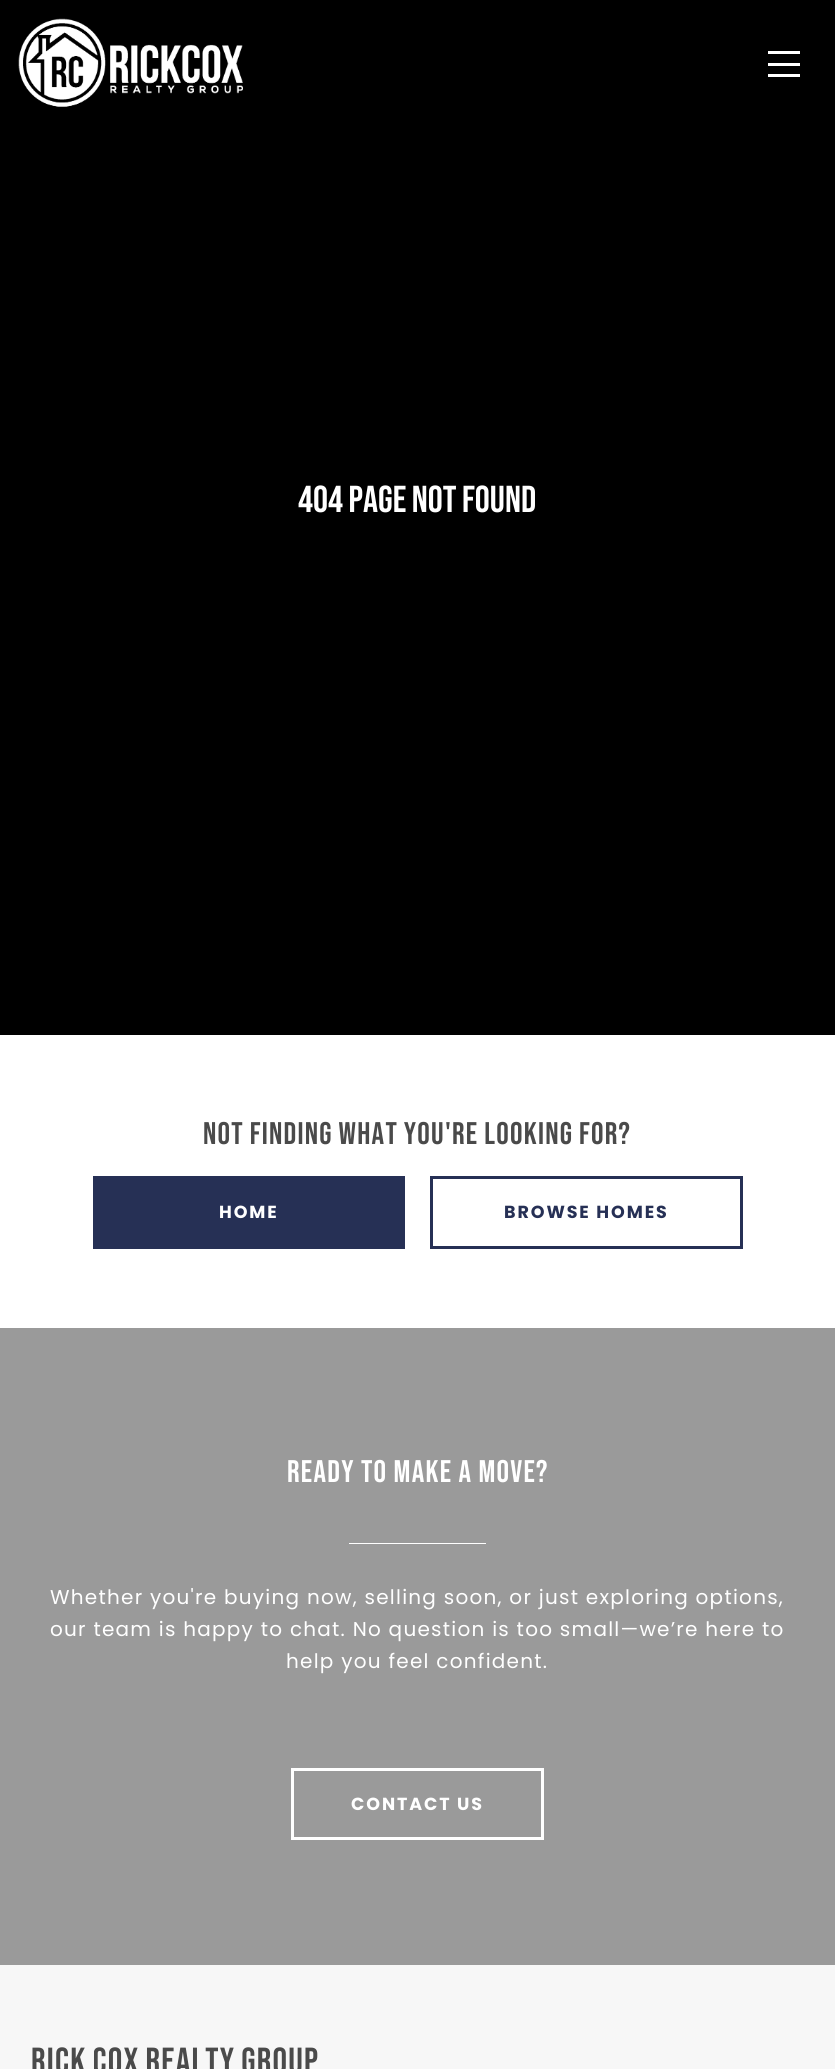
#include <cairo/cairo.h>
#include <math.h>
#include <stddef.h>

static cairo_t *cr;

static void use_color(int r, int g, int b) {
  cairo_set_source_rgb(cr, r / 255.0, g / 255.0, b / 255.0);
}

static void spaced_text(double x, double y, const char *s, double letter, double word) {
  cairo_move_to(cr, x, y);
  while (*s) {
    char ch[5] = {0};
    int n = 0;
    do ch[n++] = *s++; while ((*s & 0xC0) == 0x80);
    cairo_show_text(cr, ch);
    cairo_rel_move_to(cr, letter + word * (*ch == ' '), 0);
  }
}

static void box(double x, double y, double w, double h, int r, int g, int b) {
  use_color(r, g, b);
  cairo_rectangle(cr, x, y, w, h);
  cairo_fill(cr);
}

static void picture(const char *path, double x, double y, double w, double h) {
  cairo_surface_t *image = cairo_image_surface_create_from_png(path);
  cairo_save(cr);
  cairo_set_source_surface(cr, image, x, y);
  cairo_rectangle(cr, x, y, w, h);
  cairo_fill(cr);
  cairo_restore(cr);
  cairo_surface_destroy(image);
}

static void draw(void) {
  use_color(255, 255, 255);
  cairo_paint(cr);
  box(0, 0, 835, 1035, 0, 0, 0);
  picture("img_01.png", 18, 18, 225, 89);
  box(768, 63, 32, 3, 255, 255, 255);
  box(768, 51, 32, 3, 255, 255, 255);
  box(768, 74, 32, 3, 255, 255, 255);
  box(93, 1176, 312, 73, 38, 48, 85);
  cairo_rectangle(cr, 431.5, 1177.5, 310, 70);
  cairo_set_line_width(cr, 3);
  cairo_stroke(cr);
  box(0, 1328, 835, 637, 154, 154, 154);
  box(349, 1543, 137, 1, 255, 255, 255);
  cairo_rectangle(cr, 292.5, 1769.5, 250, 69);
  cairo_stroke(cr);
  box(0, 1965, 835, 104, 247, 247, 247);
  cairo_select_font_face(cr, "Bebas Neue", CAIRO_FONT_SLANT_NORMAL, CAIRO_FONT_WEIGHT_NORMAL);
  cairo_set_font_size(cr, 37.5);
  use_color(255, 255, 255);
  spaced_text(298, 512, "404 PAGE NOT FOUND", 0, -0.5);
  cairo_set_font_size(cr, 31.25);
  use_color(74, 74, 74);
  spaced_text(203, 1144, "NOT FINDING WHAT YOU'RE LOOKING FOR?", 1.25, -0.5);
  cairo_select_font_face(cr, "Poppins", CAIRO_FONT_SLANT_NORMAL, CAIRO_FONT_WEIGHT_BOLD);
  cairo_set_font_size(cr, 17.5);
  use_color(255, 255, 255);
  spaced_text(219, 1218, "HOME", 1.9, 0);
  use_color(38, 48, 85);
  spaced_text(504, 1218, "BROWSE HOMES", 1.9, 0);
  cairo_select_font_face(cr, "Bebas Neue", CAIRO_FONT_SLANT_NORMAL, CAIRO_FONT_WEIGHT_NORMAL);
  cairo_set_font_size(cr, 31.25);
  use_color(255, 255, 255);
  spaced_text(287, 1482, "READY TO MAKE A MOVE?", 1.25, 0);
  cairo_select_font_face(cr, "Poppins", CAIRO_FONT_SLANT_NORMAL, CAIRO_FONT_WEIGHT_NORMAL);
  cairo_set_font_size(cr, 20);
  spaced_text(50, 1604, "Whether you're buying now, selling soon, or just exploring options,", 1.25, 0);
  spaced_text(50, 1636, "our team is happy to chat. No question is too small—we’re here to", 1.25, 0);
  spaced_text(286, 1668, "help you feel confident.", 1.25, 0);
  cairo_select_font_face(cr, "Poppins", CAIRO_FONT_SLANT_NORMAL, CAIRO_FONT_WEIGHT_BOLD);
  cairo_set_font_size(cr, 17.5);
  spaced_text(351, 1810, "CONTACT US", 1.9, 0);
  cairo_select_font_face(cr, "Bebas Neue", CAIRO_FONT_SLANT_NORMAL, CAIRO_FONT_WEIGHT_NORMAL);
  cairo_set_font_size(cr, 36.25);
  use_color(74, 74, 74);
  spaced_text(31, 2073, "RICK COX REALTY GROUP", 1.25, -1);
}

int main(void) {
  cairo_surface_t *surface = cairo_image_surface_create(CAIRO_FORMAT_RGB24, 835, 2069);
  cr = cairo_create(surface);
  cairo_font_options_t *options = cairo_font_options_create();
  cairo_font_options_set_hint_metrics(options, CAIRO_HINT_METRICS_OFF);
  cairo_font_options_set_hint_style(options, CAIRO_HINT_STYLE_NONE);
  cairo_set_font_options(cr, options);
  cairo_set_miter_limit(cr, 4);
  draw();
  cairo_surface_write_to_png(surface, "out.png");
  cairo_font_options_destroy(options);
  cairo_destroy(cr);
  cairo_surface_destroy(surface);
  return 0;
}
